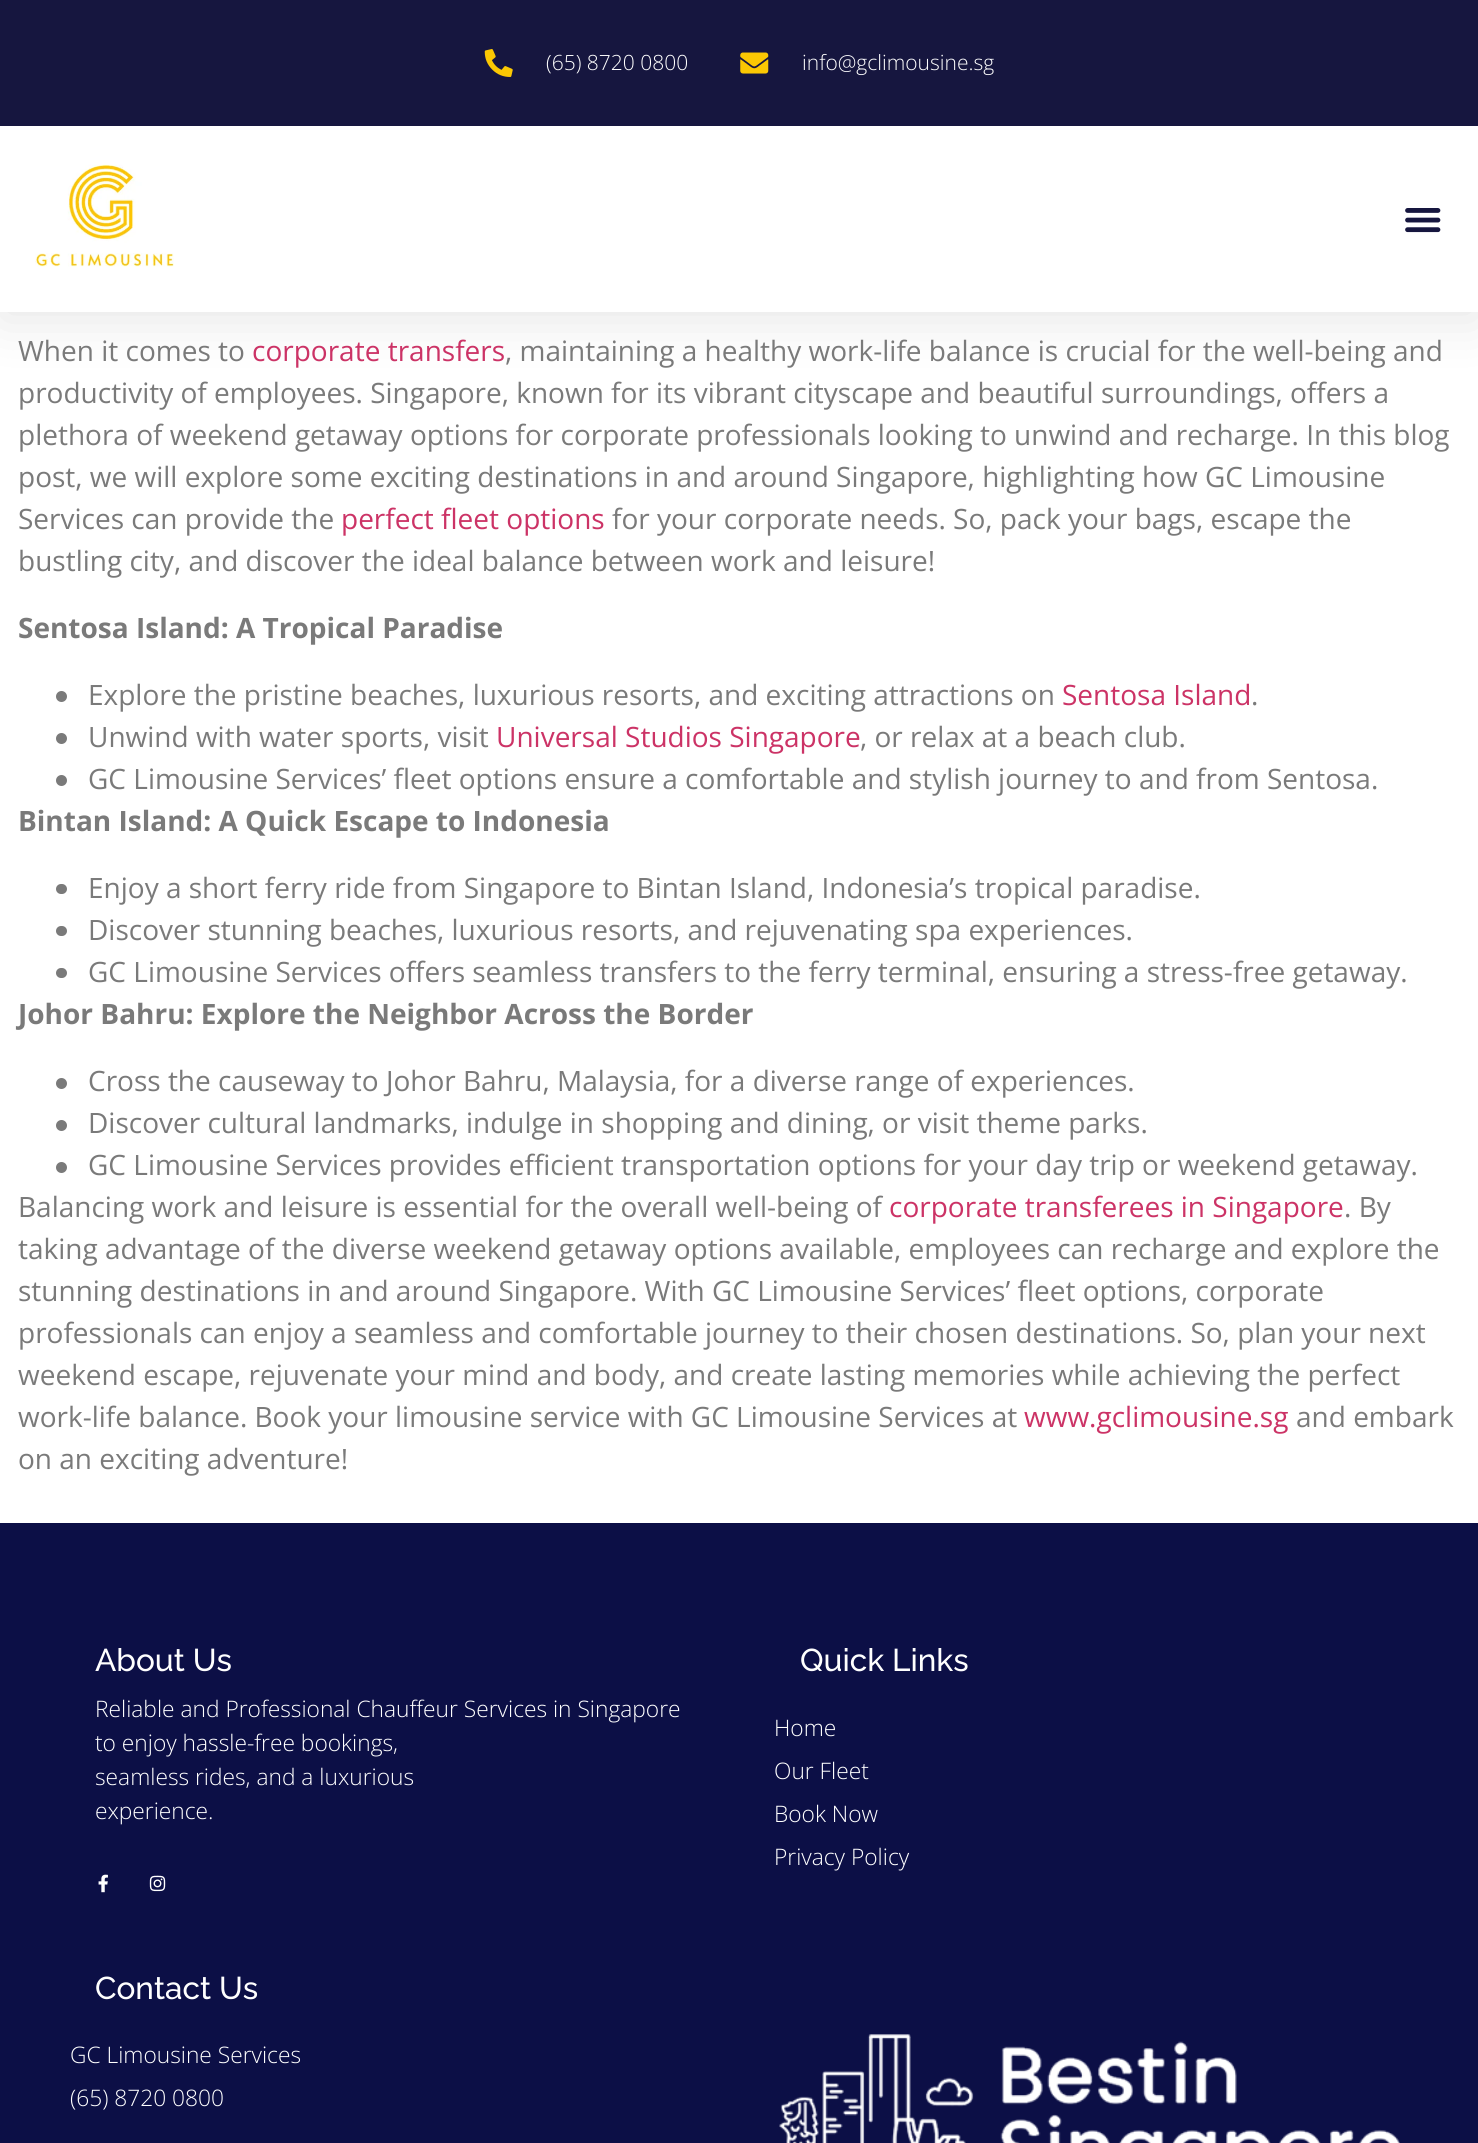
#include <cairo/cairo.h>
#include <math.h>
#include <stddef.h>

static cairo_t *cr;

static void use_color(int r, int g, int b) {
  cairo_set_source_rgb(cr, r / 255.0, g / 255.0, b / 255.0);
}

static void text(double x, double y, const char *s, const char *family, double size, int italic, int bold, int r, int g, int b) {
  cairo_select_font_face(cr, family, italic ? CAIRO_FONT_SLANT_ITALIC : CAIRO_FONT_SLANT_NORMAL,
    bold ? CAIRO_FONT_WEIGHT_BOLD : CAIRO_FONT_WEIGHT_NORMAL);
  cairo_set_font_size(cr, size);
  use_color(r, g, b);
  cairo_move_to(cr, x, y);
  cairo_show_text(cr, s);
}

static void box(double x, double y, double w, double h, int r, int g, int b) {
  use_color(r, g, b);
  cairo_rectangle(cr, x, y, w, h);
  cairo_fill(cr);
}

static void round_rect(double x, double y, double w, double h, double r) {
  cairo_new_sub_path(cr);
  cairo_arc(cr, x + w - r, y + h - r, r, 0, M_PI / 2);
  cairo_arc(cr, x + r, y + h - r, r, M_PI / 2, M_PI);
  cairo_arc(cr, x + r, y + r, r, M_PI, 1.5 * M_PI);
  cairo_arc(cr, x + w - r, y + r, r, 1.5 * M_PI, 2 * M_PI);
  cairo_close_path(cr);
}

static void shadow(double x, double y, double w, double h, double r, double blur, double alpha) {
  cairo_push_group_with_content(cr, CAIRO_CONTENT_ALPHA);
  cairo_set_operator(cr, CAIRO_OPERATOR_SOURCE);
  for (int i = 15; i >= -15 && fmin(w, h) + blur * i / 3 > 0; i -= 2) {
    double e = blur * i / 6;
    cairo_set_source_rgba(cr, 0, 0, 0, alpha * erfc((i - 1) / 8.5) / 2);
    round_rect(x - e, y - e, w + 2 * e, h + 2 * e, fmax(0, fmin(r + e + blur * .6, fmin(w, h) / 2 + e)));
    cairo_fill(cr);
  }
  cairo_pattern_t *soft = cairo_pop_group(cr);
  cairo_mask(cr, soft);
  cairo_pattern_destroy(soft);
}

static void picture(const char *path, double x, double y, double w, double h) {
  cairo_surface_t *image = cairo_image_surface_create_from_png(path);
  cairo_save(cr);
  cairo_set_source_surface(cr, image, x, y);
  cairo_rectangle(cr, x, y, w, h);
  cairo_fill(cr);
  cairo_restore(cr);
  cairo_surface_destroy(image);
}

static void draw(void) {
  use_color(255, 255, 255);
  cairo_paint(cr);
  use_color(0, 0, 0);
  shadow(0, 9, 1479, 311, 0, 26, 0.1);
  box(0, 0, 1478, 126, 22, 22, 63);
  picture("img_01.png", 484, 49, 29, 28);
  picture("img_02.png", 740, 52, 29, 22);
  box(0, 126, 1478, 186, 255, 255, 255);
  picture("img_03.png", 35, 164, 139, 103);
  picture("img_04.png", 1405, 208, 36, 25);
  use_color(122, 122, 122);
  cairo_arc(cr, 61.5, 696.5, 5.5, 0, 2 * M_PI);
  cairo_fill(cr);
  cairo_arc(cr, 61.5, 738.5, 5.5, 0, 2 * M_PI);
  cairo_fill(cr);
  cairo_arc(cr, 61.5, 780.5, 5.5, 0, 2 * M_PI);
  cairo_fill(cr);
  round_rect(56, 884, 11, 10, 5);
  cairo_fill(cr);
  round_rect(56, 926, 11, 10, 5);
  cairo_fill(cr);
  round_rect(56, 968, 11, 10, 5);
  cairo_fill(cr);
  cairo_arc(cr, 61.5, 1083.5, 5.5, 0, 2 * M_PI);
  cairo_fill(cr);
  cairo_arc(cr, 61.5, 1125.5, 5.5, 0, 2 * M_PI);
  cairo_fill(cr);
  cairo_arc(cr, 61.5, 1167.5, 5.5, 0, 2 * M_PI);
  cairo_fill(cr);
  box(0, 1523, 1478, 620, 12, 15, 70);
  picture("img_05.png", 98, 1874, 10, 19);
  picture("img_06.png", 149, 1875, 17, 17);
  picture("img_07.png", 779, 2034, 621, 109);
  text(546, 70, "(65) 8720 0800", "Open Sans Light", 21, 0, 0, 255, 255, 255);
  text(802, 70, "info@gclimousine.sg", "Open Sans Light", 21, 0, 0, 255, 255, 255);
  text(18, 361, "When it comes to", "Open Sans", 28, 0, 0, 122, 122, 122);
  text(252, 361, "corporate transfers", "Open Sans", 28, 0, 0, 204, 51, 102);
  text(505, 361, ", maintaining a healthy work-life balance is crucial for the well-being and", "Open Sans", 28, 0, 0, 122, 122, 122);
  text(18, 403, "productivity of employees. Singapore, known for its vibrant cityscape and beautiful surroundings, offers a", "Open Sans", 28, 0, 0, 122, 122, 122);
  text(18, 445, "plethora of weekend getaway options for corporate professionals looking to unwind and recharge. In this blog", "Open Sans", 28, 0, 0, 122, 122, 122);
  text(18, 487, "post, we will explore some exciting destinations in and around Singapore, highlighting how GC Limousine", "Open Sans", 28, 0, 0, 122, 122, 122);
  text(18, 529, "Services can provide the", "Open Sans", 28, 0, 0, 122, 122, 122);
  text(341, 529, "perfect fleet options", "Open Sans", 28, 0, 0, 204, 51, 102);
  text(612, 529, "for your corporate needs. So, pack your bags, escape the", "Open Sans", 28, 0, 0, 122, 122, 122);
  text(18, 571, "bustling city, and discover the ideal balance between work and leisure!", "Open Sans", 28, 0, 0, 122, 122, 122);
  text(18, 638, "Sentosa Island: A Tropical Paradise", "Open Sans", 28, 0, 1, 122, 122, 122);
  text(88, 705, "Explore the pristine beaches, luxurious resorts, and exciting attractions on", "Open Sans", 28, 0, 0, 122, 122, 122);
  text(1062, 705, "Sentosa Island", "Open Sans", 28, 0, 0, 204, 51, 102);
  text(1251, 705, ".", "Open Sans", 28, 0, 0, 122, 122, 122);
  text(88, 747, "Unwind with water sports, visit", "Open Sans", 28, 0, 0, 122, 122, 122);
  text(496, 747, "Universal Studios Singapore", "Open Sans", 28, 0, 0, 204, 51, 102);
  text(860, 747, ", or relax at a beach club.", "Open Sans", 28, 0, 0, 122, 122, 122);
  text(88, 789, "GC Limousine Services’ fleet options ensure a comfortable and stylish journey to and from Sentosa.", "Open Sans", 28, 0, 0, 122, 122, 122);
  text(18, 831, "Bintan Island: A Quick Escape to Indonesia", "Open Sans", 28, 0, 1, 122, 122, 122);
  text(88, 898, "Enjoy a short ferry ride from Singapore to Bintan Island, Indonesia’s tropical paradise.", "Open Sans", 28, 0, 0, 122, 122, 122);
  text(88, 940, "Discover stunning beaches, luxurious resorts, and rejuvenating spa experiences.", "Open Sans", 28, 0, 0, 122, 122, 122);
  text(88, 982, "GC Limousine Services offers seamless transfers to the ferry terminal, ensuring a stress-free getaway.", "Open Sans", 28, 0, 0, 122, 122, 122);
  text(18, 1024, "Johor Bahru: Explore the Neighbor Across the Border", "Open Sans", 28, 0, 1, 122, 122, 122);
  text(88, 1091, "Cross the causeway to Johor Bahru, Malaysia, for a diverse range of experiences.", "Open Sans", 28, 0, 0, 122, 122, 122);
  text(88, 1133, "Discover cultural landmarks, indulge in shopping and dining, or visit theme parks.", "Open Sans", 28, 0, 0, 122, 122, 122);
  text(88, 1175, "GC Limousine Services provides efficient transportation options for your day trip or weekend getaway.", "Open Sans", 28, 0, 0, 122, 122, 122);
  text(18, 1217, "Balancing work and leisure is essential for the overall well-being of", "Open Sans", 28, 0, 0, 122, 122, 122);
  text(889, 1217, "corporate transferees in Singapore", "Open Sans", 28, 0, 0, 204, 51, 102);
  text(1344, 1217, ". By", "Open Sans", 28, 0, 0, 122, 122, 122);
  text(18, 1259, "taking advantage of the diverse weekend getaway options available, employees can recharge and explore the", "Open Sans", 28, 0, 0, 122, 122, 122);
  text(18, 1301, "stunning destinations in and around Singapore. With GC Limousine Services’ fleet options, corporate", "Open Sans", 28, 0, 0, 122, 122, 122);
  text(18, 1343, "professionals can enjoy a seamless and comfortable journey to their chosen destinations. So, plan your next", "Open Sans", 28, 0, 0, 122, 122, 122);
  text(18, 1385, "weekend escape, rejuvenate your mind and body, and create lasting memories while achieving the perfect", "Open Sans", 28, 0, 0, 122, 122, 122);
  text(18, 1427, "work-life balance. Book your limousine service with GC Limousine Services at", "Open Sans", 28, 0, 0, 122, 122, 122);
  text(1024, 1427, "www.gclimousine.sg", "Open Sans", 28, 0, 0, 204, 51, 102);
  text(1296, 1427, "and embark", "Open Sans", 28, 0, 0, 122, 122, 122);
  text(18, 1469, "on an exciting adventure!", "Open Sans", 28, 0, 0, 122, 122, 122);
  text(95, 1671, "About Us", "Raleway Medium", 31.5, 0, 0, 255, 255, 255);
  text(95, 1717, "Reliable and Professional Chauffeur Services in Singapore", "Open Sans Light", 22.75, 0, 0, 255, 255, 255);
  text(95, 1751, "to enjoy hassle-free bookings,", "Open Sans Light", 22.75, 0, 0, 255, 255, 255);
  text(95, 1785, "seamless rides, and a luxurious", "Open Sans Light", 22.75, 0, 0, 255, 255, 255);
  text(95, 1819, "experience.", "Open Sans Light", 22.75, 0, 0, 255, 255, 255);
  text(800, 1671, "Quick Links", "Raleway Medium", 31.5, 0, 0, 255, 255, 255);
  text(774, 1736, "Home", "Open Sans Light", 22.75, 0, 0, 255, 255, 255);
  text(774, 1779, "Our Fleet", "Open Sans Light", 22.75, 0, 0, 255, 255, 255);
  text(774, 1822, "Book Now", "Open Sans Light", 22.75, 0, 0, 255, 255, 255);
  text(774, 1865, "Privacy Policy", "Open Sans Light", 22.75, 0, 0, 255, 255, 255);
  text(95, 1999, "Contact Us", "Raleway Medium", 31.5, 0, 0, 255, 255, 255);
  text(70, 2063, "GC Limousine Services", "Open Sans Light", 22.75, 0, 0, 255, 255, 255);
  text(70, 2106, "(65) 8720 0800", "Open Sans Light", 22.75, 0, 0, 255, 255, 255);
}

int main(void) {
  cairo_surface_t *surface = cairo_image_surface_create(CAIRO_FORMAT_RGB24, 1478, 2143);
  cr = cairo_create(surface);
  cairo_font_options_t *options = cairo_font_options_create();
  cairo_font_options_set_hint_metrics(options, CAIRO_HINT_METRICS_OFF);
  cairo_font_options_set_hint_style(options, CAIRO_HINT_STYLE_NONE);
  cairo_set_font_options(cr, options);
  cairo_set_miter_limit(cr, 4);
  draw();
  cairo_surface_write_to_png(surface, "out.png");
  cairo_font_options_destroy(options);
  cairo_destroy(cr);
  cairo_surface_destroy(surface);
  return 0;
}
